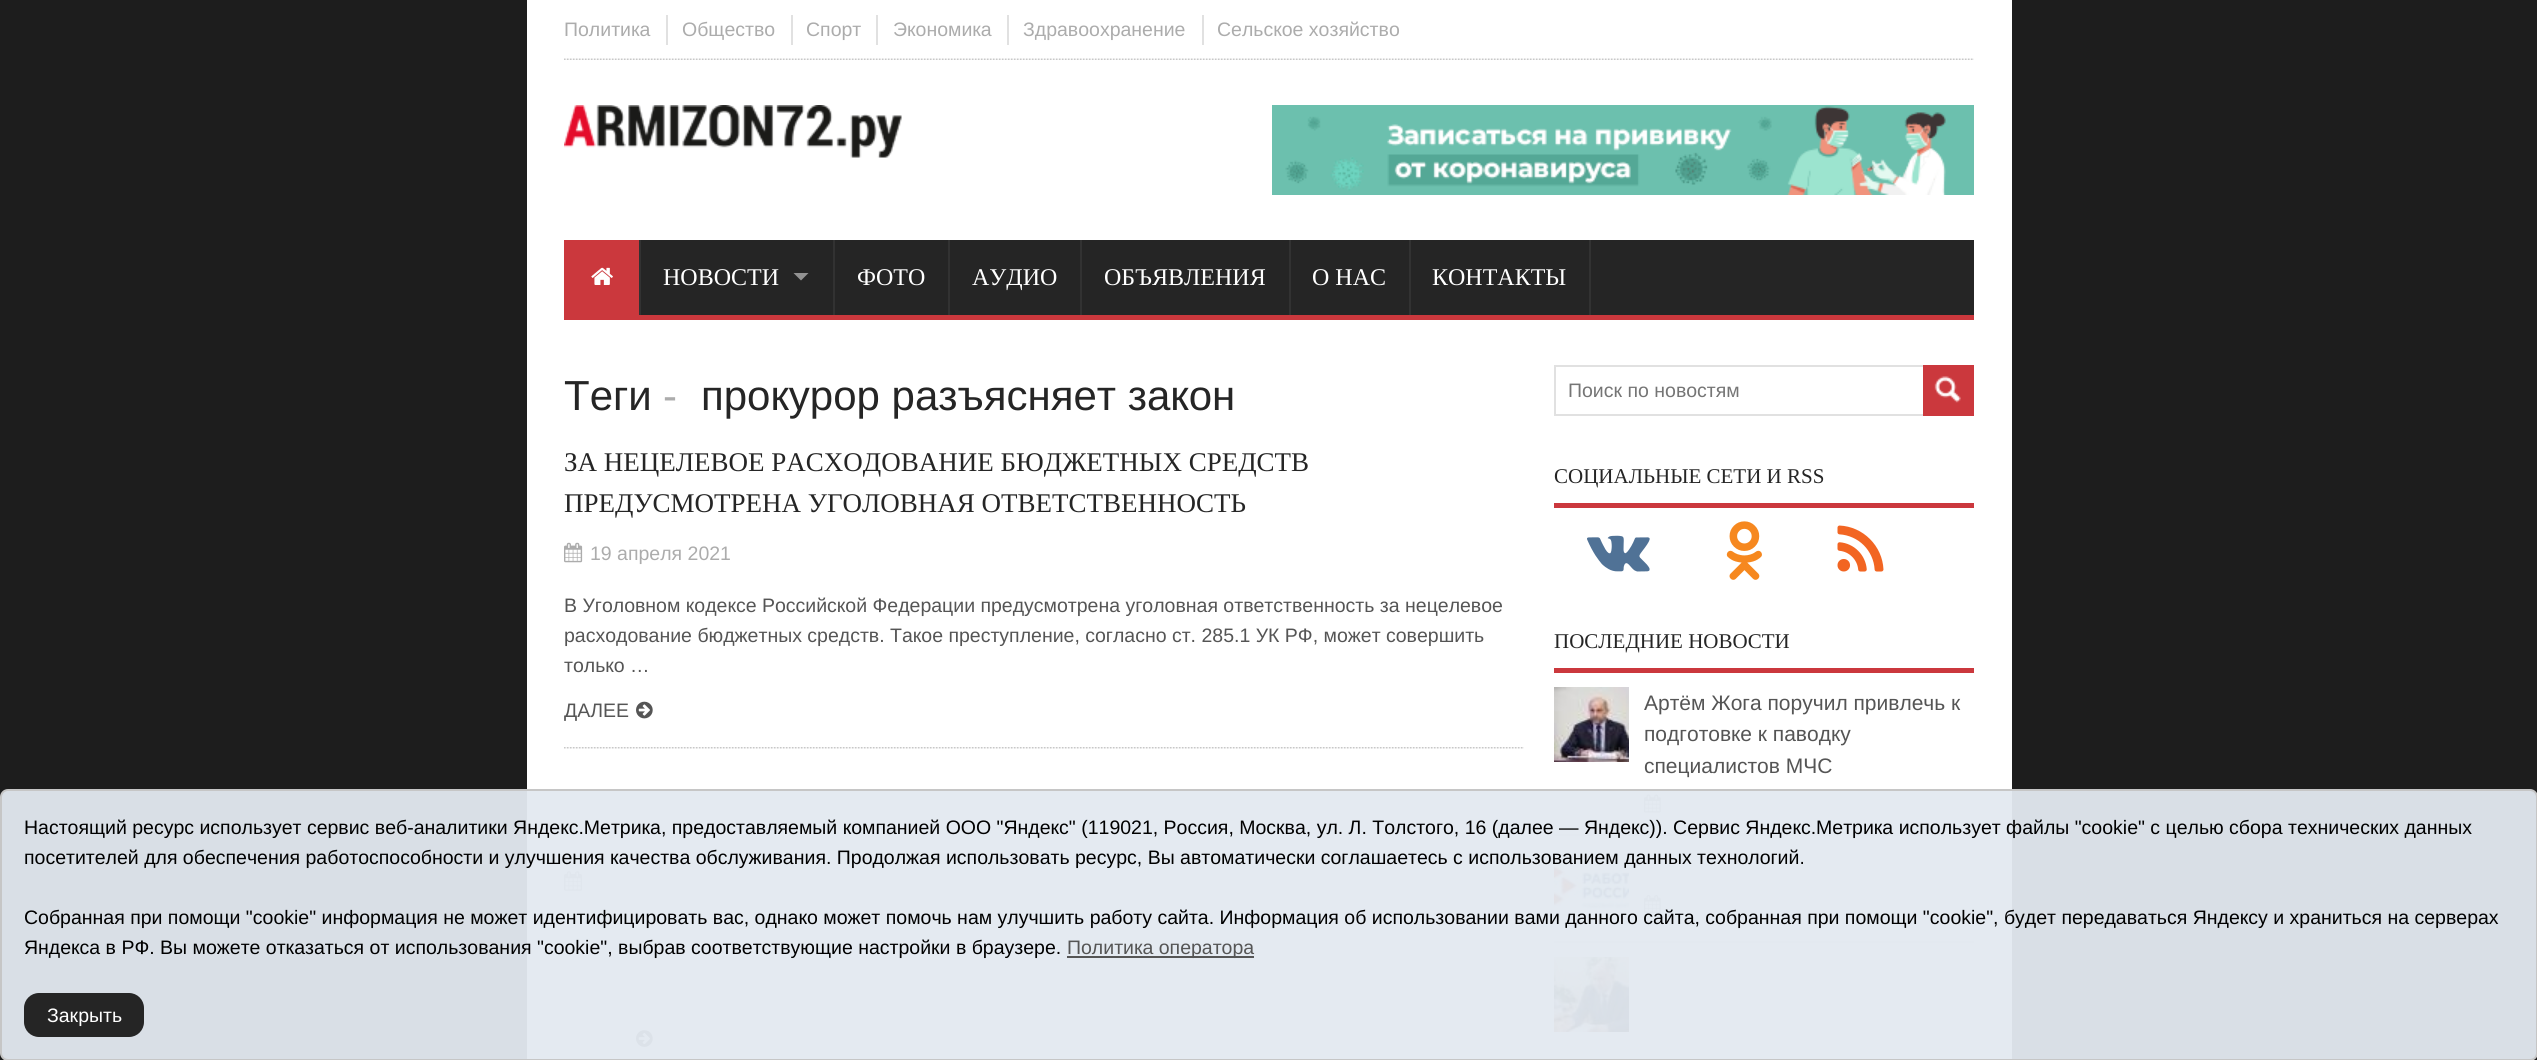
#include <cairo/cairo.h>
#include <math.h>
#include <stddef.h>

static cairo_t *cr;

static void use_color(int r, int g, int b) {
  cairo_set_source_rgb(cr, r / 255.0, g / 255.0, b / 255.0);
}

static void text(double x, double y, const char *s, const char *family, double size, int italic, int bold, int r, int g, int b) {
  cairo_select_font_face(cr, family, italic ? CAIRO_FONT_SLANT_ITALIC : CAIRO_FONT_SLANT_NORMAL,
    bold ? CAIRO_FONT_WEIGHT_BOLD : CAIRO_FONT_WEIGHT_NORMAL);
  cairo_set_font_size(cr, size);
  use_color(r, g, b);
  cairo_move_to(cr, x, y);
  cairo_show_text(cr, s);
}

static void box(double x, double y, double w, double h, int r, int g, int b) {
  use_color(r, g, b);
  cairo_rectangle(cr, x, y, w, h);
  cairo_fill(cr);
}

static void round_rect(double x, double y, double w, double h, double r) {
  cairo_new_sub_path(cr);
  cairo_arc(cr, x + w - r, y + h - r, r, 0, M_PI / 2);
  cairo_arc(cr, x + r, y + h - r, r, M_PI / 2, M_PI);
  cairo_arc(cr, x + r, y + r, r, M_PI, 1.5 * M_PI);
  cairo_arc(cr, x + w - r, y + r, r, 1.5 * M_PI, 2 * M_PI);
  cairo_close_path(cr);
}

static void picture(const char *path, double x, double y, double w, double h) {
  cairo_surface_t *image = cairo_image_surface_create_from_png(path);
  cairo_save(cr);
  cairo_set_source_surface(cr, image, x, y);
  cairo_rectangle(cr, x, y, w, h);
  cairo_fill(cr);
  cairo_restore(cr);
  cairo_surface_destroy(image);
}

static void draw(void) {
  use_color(29, 29, 29);
  cairo_paint(cr);
  box(527, 0, 1485, 1059, 255, 255, 255);
  picture("img_01.png", 564, 58, 1410, 2);
  box(666, 15, 2, 30, 225, 225, 225);
  box(791, 15, 2, 30, 225, 225, 225);
  box(876, 15, 2, 30, 225, 225, 225);
  box(1007, 15, 2, 30, 225, 225, 225);
  box(1202, 15, 2, 30, 225, 225, 225);
  picture("img_02.png", 564, 105, 338, 53);
  picture("img_03.png", 1272, 105, 702, 90);
  box(641, 240, 1333, 75, 37, 37, 37);
  box(564, 315, 1410, 5, 203, 56, 61);
  box(564, 240, 75, 75, 203, 56, 61);
  box(639, 240, 2, 75, 50, 50, 50);
  picture("img_04.png", 591, 267, 22, 18);
  box(833, 240, 2, 75, 50, 50, 50);
  use_color(146, 146, 146);
  cairo_new_path(cr);
  cairo_move_to(cr, 793.5, 273);
  cairo_line_to(cr, 808.5, 273);
  cairo_line_to(cr, 801, 280.5);
  cairo_close_path(cr);
  cairo_fill(cr);
  box(948, 240, 2, 75, 50, 50, 50);
  box(1080, 240, 2, 75, 50, 50, 50);
  box(1289, 240, 2, 75, 50, 50, 50);
  box(1409, 240, 2, 75, 50, 50, 50);
  box(1589, 240, 2, 75, 50, 50, 50);
  picture("img_05.png", 564, 747, 960, 2);
  picture("img_06.png", 564, 542, 19, 21);
  picture("img_07.png", 636, 701, 17, 18);
  picture("img_08.png", 564, 871, 19, 20);
  picture("img_09.png", 636, 1030, 17, 17);
  cairo_rectangle(cr, 1555, 366, 418, 49);
  use_color(225, 225, 225);
  cairo_stroke(cr);
  box(1923, 365, 51, 51, 203, 56, 61);
  picture("img_10.png", 1934, 376, 27, 27);
  box(1554, 503, 420, 5, 203, 56, 61);
  picture("img_11.png", 1587, 535, 63, 37);
  picture("img_12.png", 1726, 521, 36, 59);
  picture("img_13.png", 1837, 525, 47, 47);
  box(1554, 668, 420, 5, 203, 56, 61);
  box(1554, 834, 420, 2, 225, 225, 225);
  picture("img_14.png", 1554, 687, 75, 75);
  picture("img_15.png", 1644, 794, 17, 19);
  box(1554, 941, 420, 2, 225, 225, 225);
  picture("img_16.png", 1554, 851, 75, 72);
  picture("img_17.png", 1644, 895, 17, 19);
  picture("img_18.png", 1554, 957, 75, 75);
  cairo_set_source_rgba(cr, 0.89, 0.914, 0.945, 0.95);
  round_rect(1, 790, 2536, 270, 7);
  cairo_fill_preserve(cr);
  use_color(198, 198, 198);
  cairo_stroke(cr);
  box(1067, 956, 187, 2, 85, 85, 85);
  use_color(37, 37, 37);
  round_rect(24, 993, 120, 44, 15);
  cairo_fill(cr);
  text(564, 36, "Политика", "Liberation Sans", 19.5, 0, 0, 172, 172, 172);
  text(682, 36, "Общество", "Liberation Sans", 19.5, 0, 0, 172, 172, 172);
  text(806, 36, "Спорт", "Liberation Sans", 19.5, 0, 0, 172, 172, 172);
  text(893, 36, "Экономика", "Liberation Sans", 19.5, 0, 0, 172, 172, 172);
  text(1023, 36, "Здравоохранение", "Liberation Sans", 19.5, 0, 0, 172, 172, 172);
  text(1217, 36, "Сельское хозяйство", "Liberation Sans", 19.5, 0, 0, 172, 172, 172);
  text(663, 285, "НОВОСТИ", "Liberation Serif", 24, 0, 0, 255, 255, 255);
  text(857, 285, "ФОТО", "Liberation Serif", 24, 0, 0, 255, 255, 255);
  text(972, 285, "АУДИО", "Liberation Serif", 24, 0, 0, 255, 255, 255);
  text(1104, 285, "ОБЪЯВЛЕНИЯ", "Liberation Serif", 24, 0, 0, 255, 255, 255);
  text(1312, 285, "О НАС", "Liberation Serif", 24, 0, 0, 255, 255, 255);
  text(1432, 285, "КОНТАКТЫ", "Liberation Serif", 24, 0, 0, 255, 255, 255);
  text(564, 410, "Теги", "Liberation Sans", 42, 0, 0, 37, 37, 37);
  text(663, 410, "-", "Liberation Sans", 42, 0, 0, 172, 172, 172);
  text(701, 410, "прокурор разъясняет закон", "Liberation Sans", 42, 0, 0, 37, 37, 37);
  text(564, 471, "ЗА НЕЦЕЛЕВОЕ РАСХОДОВАНИЕ БЮДЖЕТНЫХ СРЕДСТВ", "Liberation Serif", 27, 0, 0, 37, 37, 37);
  text(564, 512, "ПРЕДУСМОТРЕНА УГОЛОВНАЯ ОТВЕТСТВЕННОСТЬ", "Liberation Serif", 27, 0, 0, 37, 37, 37);
  text(590, 560, "19 апреля 2021", "Liberation Sans", 19.5, 0, 0, 172, 172, 172);
  text(564, 612, "В Уголовном кодексе Российской Федерации предусмотрена уголовная ответственность за нецелевое", "Liberation Sans", 19.5, 0, 0, 85, 85, 85);
  text(564, 642, "расходование бюджетных средств. Такое преступление, согласно ст. 285.1 УК РФ, может совершить", "Liberation Sans", 19.5, 0, 0, 85, 85, 85);
  text(564, 672, "только …", "Liberation Sans", 19.5, 0, 0, 85, 85, 85);
  text(564, 717, "ДАЛЕЕ", "Liberation Sans", 19.5, 0, 0, 85, 85, 85);
  text(1568, 397, "Поиск по новостям", "Liberation Sans", 19.5, 0, 0, 117, 117, 117);
  text(1554, 483, "CОЦИАЛЬНЫЕ СЕТИ И RSS", "Liberation Serif", 21, 0, 0, 37, 37, 37);
  text(1554, 648, "ПОСЛЕДНИЕ НОВОСТИ", "Liberation Serif", 21, 0, 0, 37, 37, 37);
  text(1644, 710, "Артём Жога поручил привлечь к", "Liberation Sans", 21, 0, 0, 85, 85, 85);
  text(1644, 741, "подготовке к паводку", "Liberation Sans", 21, 0, 0, 85, 85, 85);
  text(1644, 773, "специалистов МЧС", "Liberation Sans", 21, 0, 0, 85, 85, 85);
  text(24, 834, "Настоящий ресурс использует сервис веб-аналитики Яндекс.Метрика, предоставляемый компанией ООО \"Яндекс\" (119021, Россия, Москва, ул. Л. Толстого, 16 (далее — Яндекс)). Сервис Яндекс.Метрика использует файлы \"cookie\" с целью сбора технических данных", "Liberation Sans", 19.5, 0, 0, 0, 0, 0);
  text(24, 864, "посетителей для обеспечения работоспособности и улучшения качества обслуживания. Продолжая использовать ресурс, Вы автоматически соглашаетесь с использованием данных технологий.", "Liberation Sans", 19.5, 0, 0, 0, 0, 0);
  text(24, 924, "Собранная при помощи \"cookie\" информация не может идентифицировать вас, однако может помочь нам улучшить работу сайта. Информация об использовании вами данного сайта, собранная при помощи \"cookie\", будет передаваться Яндексу и храниться на серверах", "Liberation Sans", 19.5, 0, 0, 0, 0, 0);
  text(24, 954, "Яндекса в РФ. Вы можете отказаться от использования \"cookie\", выбрав соответствующие настройки в браузере.", "Liberation Sans", 19.5, 0, 0, 0, 0, 0);
  text(1067, 954, "Политика оператора", "Liberation Sans", 19.5, 0, 0, 85, 85, 85);
  text(47, 1022, "Закрыть", "Liberation Sans", 19.5, 0, 0, 255, 255, 255);
}

int main(void) {
  cairo_surface_t *surface = cairo_image_surface_create(CAIRO_FORMAT_RGB24, 2537, 1060);
  cr = cairo_create(surface);
  cairo_font_options_t *options = cairo_font_options_create();
  cairo_font_options_set_hint_metrics(options, CAIRO_HINT_METRICS_OFF);
  cairo_font_options_set_hint_style(options, CAIRO_HINT_STYLE_NONE);
  cairo_set_font_options(cr, options);
  cairo_set_miter_limit(cr, 4);
  draw();
  cairo_surface_write_to_png(surface, "out.png");
  cairo_font_options_destroy(options);
  cairo_destroy(cr);
  cairo_surface_destroy(surface);
  return 0;
}
